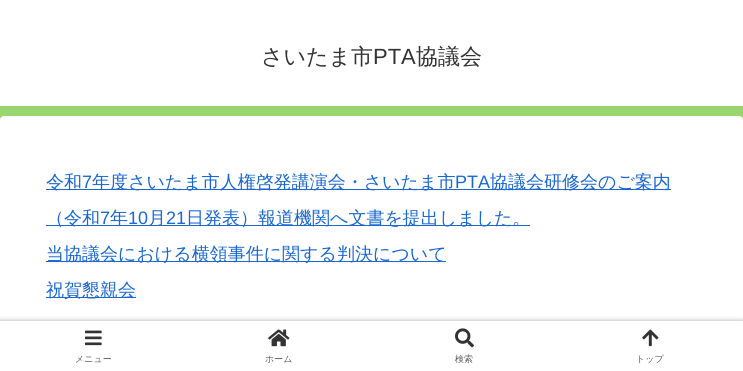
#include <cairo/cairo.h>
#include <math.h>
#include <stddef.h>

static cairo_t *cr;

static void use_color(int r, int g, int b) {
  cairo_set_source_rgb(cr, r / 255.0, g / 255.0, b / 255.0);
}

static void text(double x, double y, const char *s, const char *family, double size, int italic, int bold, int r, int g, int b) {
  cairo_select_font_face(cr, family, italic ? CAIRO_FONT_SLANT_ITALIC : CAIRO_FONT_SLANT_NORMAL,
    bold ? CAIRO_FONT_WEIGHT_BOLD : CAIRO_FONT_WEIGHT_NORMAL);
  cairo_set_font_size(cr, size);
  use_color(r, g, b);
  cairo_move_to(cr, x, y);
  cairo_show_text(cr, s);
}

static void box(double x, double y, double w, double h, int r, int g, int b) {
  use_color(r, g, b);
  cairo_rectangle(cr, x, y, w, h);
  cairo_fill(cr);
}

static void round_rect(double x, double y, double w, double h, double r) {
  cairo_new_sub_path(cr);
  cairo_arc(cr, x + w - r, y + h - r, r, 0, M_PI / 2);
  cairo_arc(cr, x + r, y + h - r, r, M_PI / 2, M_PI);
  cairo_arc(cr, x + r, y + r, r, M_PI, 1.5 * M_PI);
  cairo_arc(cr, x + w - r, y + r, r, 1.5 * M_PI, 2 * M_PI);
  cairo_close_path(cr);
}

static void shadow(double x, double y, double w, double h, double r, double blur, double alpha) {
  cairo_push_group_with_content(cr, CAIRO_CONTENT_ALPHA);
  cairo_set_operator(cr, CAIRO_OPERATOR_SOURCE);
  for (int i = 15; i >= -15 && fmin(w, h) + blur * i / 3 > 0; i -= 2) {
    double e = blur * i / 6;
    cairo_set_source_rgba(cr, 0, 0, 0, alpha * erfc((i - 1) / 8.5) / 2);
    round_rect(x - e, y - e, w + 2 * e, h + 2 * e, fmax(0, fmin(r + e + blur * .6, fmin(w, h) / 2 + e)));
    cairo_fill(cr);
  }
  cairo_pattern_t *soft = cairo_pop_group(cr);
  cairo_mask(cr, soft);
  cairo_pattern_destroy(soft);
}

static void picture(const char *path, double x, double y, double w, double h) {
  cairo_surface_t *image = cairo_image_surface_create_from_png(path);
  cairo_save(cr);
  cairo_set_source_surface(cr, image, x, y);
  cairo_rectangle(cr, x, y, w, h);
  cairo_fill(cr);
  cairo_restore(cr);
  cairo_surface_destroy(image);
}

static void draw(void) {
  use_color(154, 214, 111);
  cairo_paint(cr);
  box(0, 0, 743, 106, 255, 255, 255);
  round_rect(0, 116, 743, 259, 4);
  cairo_fill(cr);
  box(46, 189, 625, 1, 25, 103, 210);
  box(46, 225, 484, 1, 25, 103, 210);
  box(46, 261, 400, 1, 25, 103, 210);
  box(46, 297, 90, 1, 25, 103, 210);
  use_color(169, 169, 169);
  shadow(0, 321, 743, 50, 0, 2.5, 1);
  box(0, 321, 743, 50, 255, 255, 255);
  picture("img_01.png", 85, 330, 17, 16);
  picture("img_02.png", 268, 329, 22, 18);
  picture("img_03.png", 455, 328, 19, 20);
  picture("img_04.png", 642, 329, 17, 18);
  text(261, 64, "さいたま市", "WenQuanYi Zen Hei Medium", 22, 0, 0, 51, 51, 51);
  text(373, 64, "PTA", "Liberation Sans", 22, 0, 0, 51, 51, 51);
  text(416, 64, "協議会", "WenQuanYi Zen Hei Medium", 22, 0, 0, 51, 51, 51);
  text(46, 188, "令和", "WenQuanYi Zen Hei Medium", 18, 0, 0, 25, 103, 210);
  text(82, 188, "7", "Liberation Sans", 18, 0, 0, 25, 103, 210);
  text(92, 188, "年度さいたま市人権啓発講演会・さいたま市", "WenQuanYi Zen Hei Medium", 18, 0, 0, 25, 103, 210);
  text(455, 188, "PTA", "Liberation Sans", 18, 0, 0, 25, 103, 210);
  text(490, 188, "協議会研修会のご案内", "WenQuanYi Zen Hei Medium", 18, 0, 0, 25, 103, 210);
  text(46, 224, "（令和", "WenQuanYi Zen Hei Medium", 18, 0, 0, 25, 103, 210);
  text(100, 224, "7", "Liberation Sans", 18, 0, 0, 25, 103, 210);
  text(110, 224, "年", "WenQuanYi Zen Hei Medium", 18, 0, 0, 25, 103, 210);
  text(128, 224, "10", "Liberation Sans", 18, 0, 0, 25, 103, 210);
  text(148, 224, "月", "WenQuanYi Zen Hei Medium", 18, 0, 0, 25, 103, 210);
  text(166, 224, "21", "Liberation Sans", 18, 0, 0, 25, 103, 210);
  text(186, 224, "日発表）報道機関へ文書を提出しました。", "WenQuanYi Zen Hei Medium", 18, 0, 0, 25, 103, 210);
  text(46, 260, "当協議会における横領事件に関する判決について", "WenQuanYi Zen Hei Medium", 18, 0, 0, 25, 103, 210);
  text(46, 296, "祝賀懇親会", "WenQuanYi Zen Hei Medium", 18, 0, 0, 25, 103, 210);
  text(75, 362, "メニュー", "WenQuanYi Zen Hei Medium", 9, 0, 0, 92, 92, 92);
  text(265, 362, "ホーム", "WenQuanYi Zen Hei Medium", 9, 0, 0, 92, 92, 92);
  text(455, 362, "検索", "WenQuanYi Zen Hei Medium", 9, 0, 0, 92, 92, 92);
  text(636, 362, "トップ", "WenQuanYi Zen Hei Medium", 9, 0, 0, 92, 92, 92);
}

int main(void) {
  cairo_surface_t *surface = cairo_image_surface_create(CAIRO_FORMAT_RGB24, 743, 371);
  cr = cairo_create(surface);
  cairo_font_options_t *options = cairo_font_options_create();
  cairo_font_options_set_hint_metrics(options, CAIRO_HINT_METRICS_OFF);
  cairo_font_options_set_hint_style(options, CAIRO_HINT_STYLE_NONE);
  cairo_set_font_options(cr, options);
  cairo_set_miter_limit(cr, 4);
  draw();
  cairo_surface_write_to_png(surface, "out.png");
  cairo_font_options_destroy(options);
  cairo_destroy(cr);
  cairo_surface_destroy(surface);
  return 0;
}
